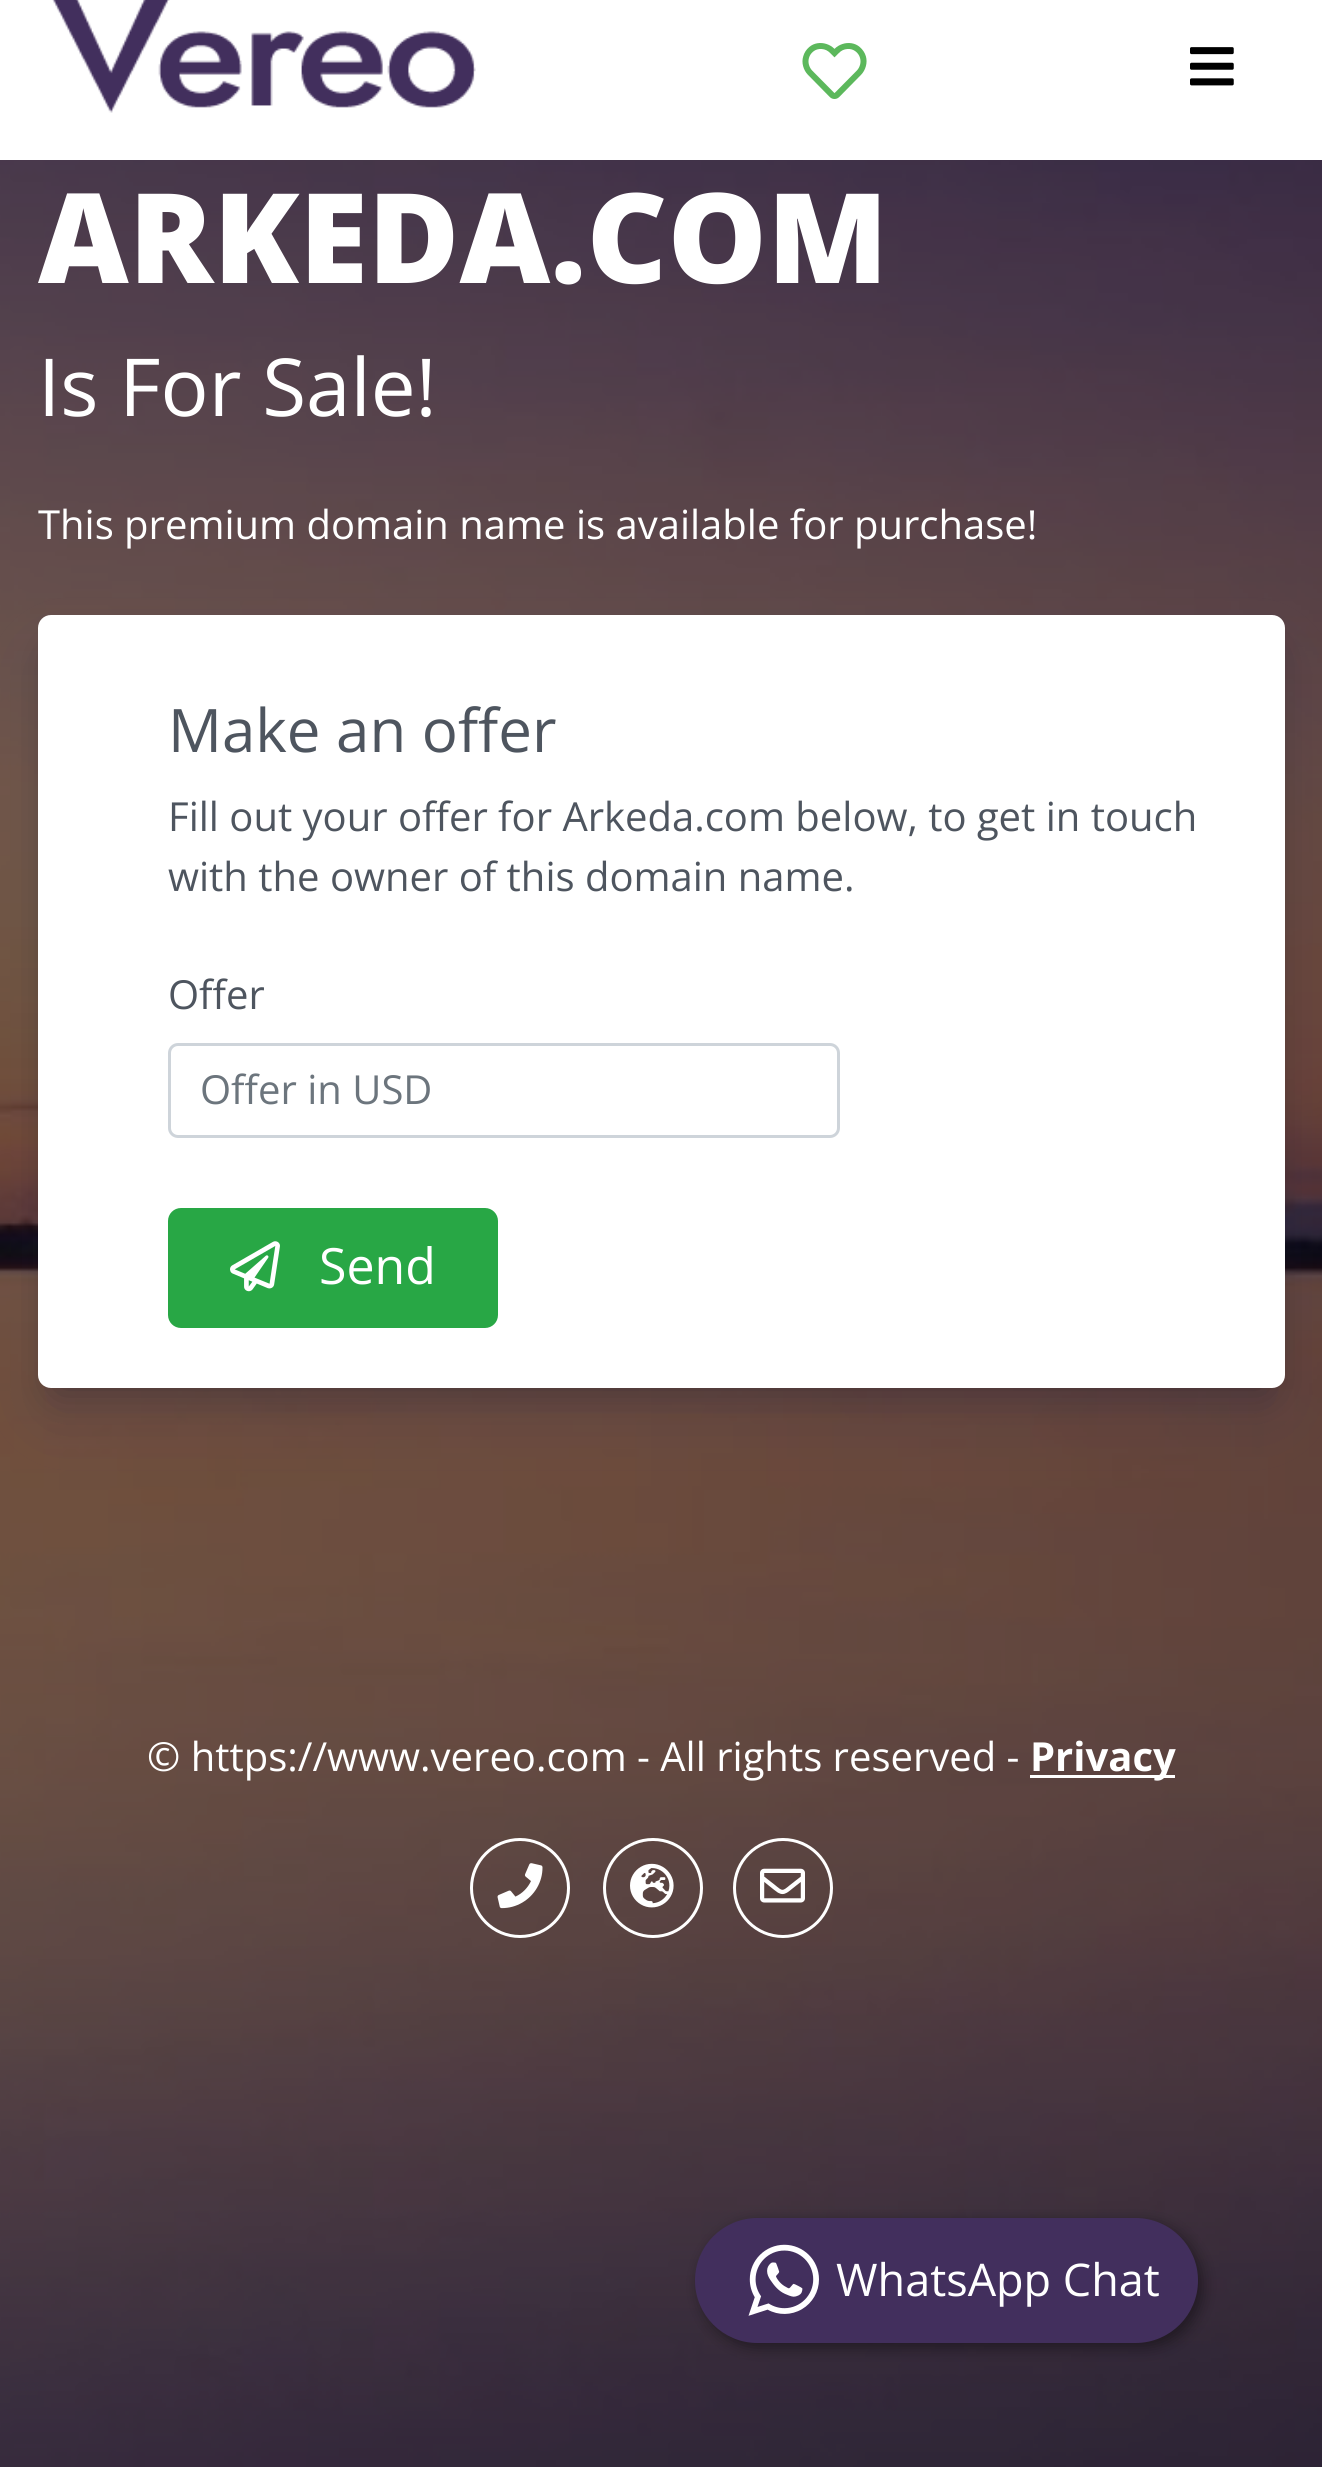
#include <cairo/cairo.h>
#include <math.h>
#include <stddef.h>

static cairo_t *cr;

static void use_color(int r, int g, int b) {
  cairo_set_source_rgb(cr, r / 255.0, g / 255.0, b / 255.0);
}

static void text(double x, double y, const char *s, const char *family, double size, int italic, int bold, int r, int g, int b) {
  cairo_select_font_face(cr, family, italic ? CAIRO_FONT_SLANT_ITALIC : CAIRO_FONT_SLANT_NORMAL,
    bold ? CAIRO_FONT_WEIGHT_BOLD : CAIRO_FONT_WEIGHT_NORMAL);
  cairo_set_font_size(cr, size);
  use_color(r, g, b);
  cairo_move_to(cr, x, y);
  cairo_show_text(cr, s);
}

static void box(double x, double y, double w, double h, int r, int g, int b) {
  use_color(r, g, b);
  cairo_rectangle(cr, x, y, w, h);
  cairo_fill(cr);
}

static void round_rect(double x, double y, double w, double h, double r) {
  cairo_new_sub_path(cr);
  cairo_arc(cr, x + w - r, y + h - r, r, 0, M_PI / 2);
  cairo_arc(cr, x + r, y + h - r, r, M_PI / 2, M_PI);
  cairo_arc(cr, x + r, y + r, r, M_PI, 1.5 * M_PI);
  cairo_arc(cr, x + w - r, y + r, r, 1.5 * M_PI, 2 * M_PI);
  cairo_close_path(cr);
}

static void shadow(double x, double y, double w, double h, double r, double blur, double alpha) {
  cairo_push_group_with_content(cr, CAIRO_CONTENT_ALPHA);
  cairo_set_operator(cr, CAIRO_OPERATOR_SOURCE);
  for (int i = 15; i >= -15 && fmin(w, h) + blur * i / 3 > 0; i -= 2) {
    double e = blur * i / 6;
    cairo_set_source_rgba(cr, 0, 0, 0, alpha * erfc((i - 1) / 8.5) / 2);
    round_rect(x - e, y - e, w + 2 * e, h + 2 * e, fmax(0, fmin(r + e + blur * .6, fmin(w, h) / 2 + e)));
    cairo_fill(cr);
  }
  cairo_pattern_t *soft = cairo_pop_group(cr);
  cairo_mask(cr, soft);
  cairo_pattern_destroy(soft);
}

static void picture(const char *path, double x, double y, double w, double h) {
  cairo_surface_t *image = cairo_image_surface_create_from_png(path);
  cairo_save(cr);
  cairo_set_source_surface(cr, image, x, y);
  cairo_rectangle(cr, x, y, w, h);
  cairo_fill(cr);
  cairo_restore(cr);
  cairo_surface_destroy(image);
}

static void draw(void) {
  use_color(255, 255, 255);
  cairo_paint(cr);
  picture("img_01.png", 52, 0, 424, 113);
  picture("img_02.png", 802, 43, 65, 56);
  picture("img_03.png", 1190, 47, 44, 39);
  picture("img_04.png", 0, 160, 1322, 2307);
  use_color(0, 0, 0);
  shadow(58, 655, 1207, 733, 0, 20, 0.3);
  use_color(50, 50, 93);
  shadow(50, 660, 1223, 748, 0, 34, 0.25);
  use_color(255, 255, 255);
  round_rect(38, 615, 1247, 773, 13);
  cairo_fill(cr);
  round_rect(169.5, 1044.5, 669, 92, 8.5);
  use_color(206, 212, 218);
  cairo_set_line_width(cr, 3);
  cairo_stroke(cr);
  use_color(40, 167, 69);
  round_rect(169.5, 1209.5, 327, 117, 11.5);
  cairo_fill_preserve(cr);
  cairo_stroke(cr);
  picture("img_05.png", 230, 1241, 50, 51);
  box(1030, 1775, 145, 3, 255, 255, 255);
  cairo_arc(cr, 520, 1888, 48.5, 0, 2 * M_PI);
  cairo_stroke(cr);
  picture("img_06.png", 497, 1863, 46, 46);
  cairo_arc(cr, 653, 1888, 48.5, 0, 2 * M_PI);
  cairo_stroke(cr);
  picture("img_07.png", 630, 1863, 44, 45);
  cairo_arc(cr, 783, 1888, 48.5, 0, 2 * M_PI);
  cairo_stroke(cr);
  picture("img_08.png", 760, 1868, 45, 35);
  use_color(0, 0, 0);
  shadow(700, 2223, 503, 125, 62.5, 7.5, 0.4);
  use_color(66, 47, 93);
  round_rect(695, 2218, 503, 125, 62.5);
  cairo_fill(cr);
  picture("img_09.png", 748, 2244, 71, 72);
  text(38, 283, "ARKEDA.COM", "Open Sans ExtraBold", 125, 0, 0, 255, 255, 255);
  text(38, 416, "Is For Sale!", "Open Sans", 80, 0, 0, 255, 255, 255);
  text(38, 539, "This premium domain name is available for purchase!", "Open Sans", 40, 0, 0, 255, 255, 255);
  text(168, 752, "Make an offer", "Open Sans", 60, 0, 0, 78, 85, 95);
  text(168, 831, "Fill out your offer for Arkeda.com below, to get in touch", "Open Sans", 40, 0, 0, 78, 85, 95);
  text(168, 891, "with the owner of this domain name.", "Open Sans", 40, 0, 0, 78, 85, 95);
  text(168, 1009, "Offer", "Open Sans", 40, 0, 0, 78, 85, 95);
  text(200, 1104, "Offer in USD", "Open Sans", 40, 0, 0, 108, 117, 125);
  text(319, 1284, "Send", "Open Sans", 50, 0, 0, 255, 255, 255);
  text(147, 1771, "© https://www.vereo.com - All rights reserved -", "Open Sans", 40, 0, 0, 255, 255, 255);
  text(1030, 1771, "Privacy", "Open Sans", 40, 0, 1, 255, 255, 255);
  text(836, 2296, "WhatsApp Chat", "Open Sans", 45, 0, 0, 255, 255, 255);
}

int main(void) {
  cairo_surface_t *surface = cairo_image_surface_create(CAIRO_FORMAT_RGB24, 1322, 2467);
  cr = cairo_create(surface);
  cairo_font_options_t *options = cairo_font_options_create();
  cairo_font_options_set_hint_metrics(options, CAIRO_HINT_METRICS_OFF);
  cairo_font_options_set_hint_style(options, CAIRO_HINT_STYLE_NONE);
  cairo_set_font_options(cr, options);
  cairo_set_miter_limit(cr, 4);
  draw();
  cairo_surface_write_to_png(surface, "out.png");
  cairo_font_options_destroy(options);
  cairo_destroy(cr);
  cairo_surface_destroy(surface);
  return 0;
}
